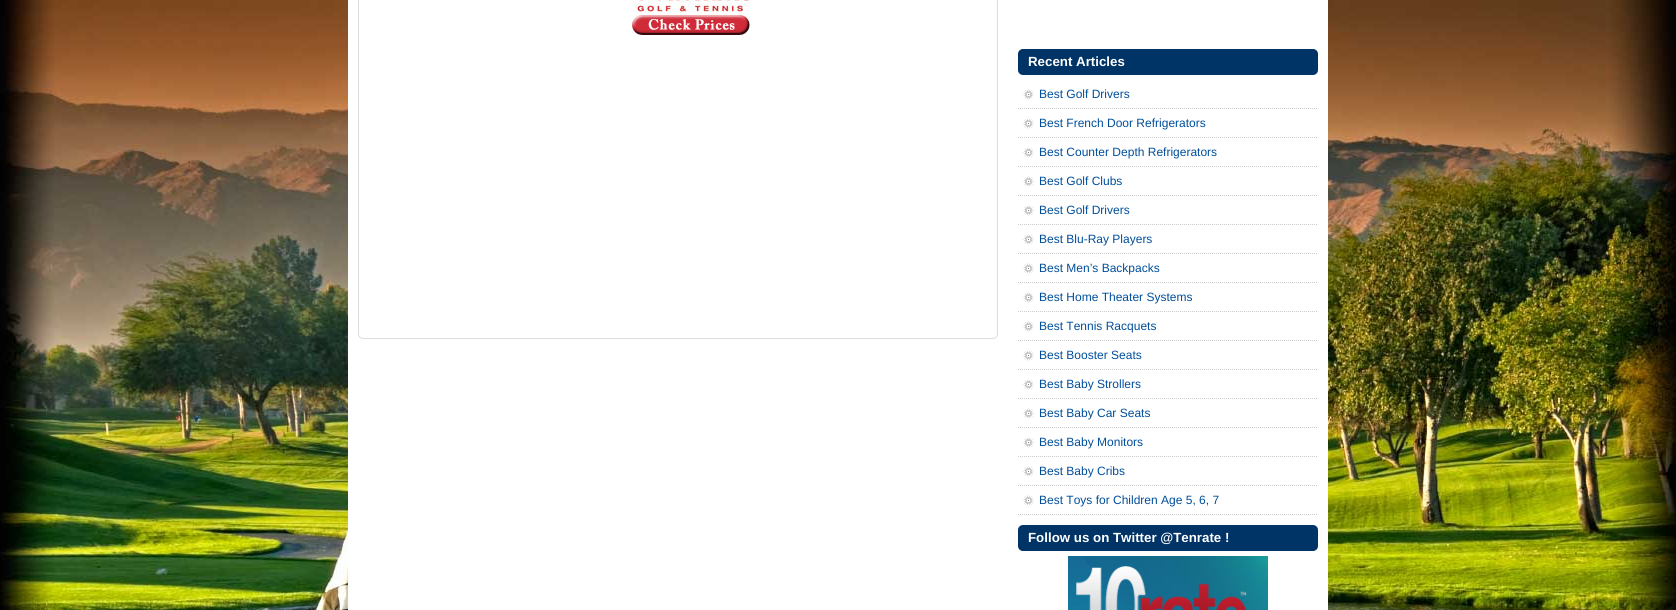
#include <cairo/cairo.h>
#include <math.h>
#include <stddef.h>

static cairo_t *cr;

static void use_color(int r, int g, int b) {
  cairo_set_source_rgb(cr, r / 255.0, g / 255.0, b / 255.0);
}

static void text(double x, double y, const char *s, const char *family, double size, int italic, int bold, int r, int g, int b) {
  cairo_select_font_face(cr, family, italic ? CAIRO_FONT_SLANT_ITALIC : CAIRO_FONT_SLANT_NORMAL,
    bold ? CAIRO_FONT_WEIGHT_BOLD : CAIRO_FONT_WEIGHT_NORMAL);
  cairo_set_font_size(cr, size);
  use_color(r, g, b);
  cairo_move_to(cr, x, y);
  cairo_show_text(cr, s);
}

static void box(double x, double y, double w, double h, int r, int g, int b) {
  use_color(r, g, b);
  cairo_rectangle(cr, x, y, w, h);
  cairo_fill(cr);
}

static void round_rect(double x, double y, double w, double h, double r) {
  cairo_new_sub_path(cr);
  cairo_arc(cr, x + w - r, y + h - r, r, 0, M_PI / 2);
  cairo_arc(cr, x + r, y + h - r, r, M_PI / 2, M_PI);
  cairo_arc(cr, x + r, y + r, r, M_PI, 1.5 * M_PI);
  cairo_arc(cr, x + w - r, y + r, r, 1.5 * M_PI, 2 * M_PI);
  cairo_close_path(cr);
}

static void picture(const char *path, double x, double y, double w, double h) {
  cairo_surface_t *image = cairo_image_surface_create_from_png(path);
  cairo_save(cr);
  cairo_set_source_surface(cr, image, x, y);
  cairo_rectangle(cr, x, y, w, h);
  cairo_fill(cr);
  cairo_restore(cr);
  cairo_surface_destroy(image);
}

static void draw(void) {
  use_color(255, 255, 255);
  cairo_paint(cr);
  picture("img_01.png", 0, 0, 1676, 610);
  box(348, 0, 980, 610, 255, 255, 255);
  round_rect(358.5, -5.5, 639, 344, 4.5);
  use_color(221, 221, 221);
  cairo_set_line_width(cr, 1);
  cairo_stroke(cr);
  picture("img_02.png", 628, 0, 123, 35);
  use_color(0, 51, 102);
  round_rect(1018, 49, 300, 26, 5);
  cairo_fill(cr);
  picture("img_03.png", 1023, 89, 11, 11);
  cairo_new_path(cr);
  cairo_move_to(cr, 1018, 108.5);
  cairo_line_to(cr, 1318, 108.5);
  use_color(204, 204, 204);
  cairo_set_dash(cr, (double[]){1, 1}, 2, 0);
  cairo_stroke(cr);
  picture("img_03.png", 1023, 118, 11, 11);
  cairo_new_path(cr);
  cairo_move_to(cr, 1018, 137.5);
  cairo_line_to(cr, 1318, 137.5);
  cairo_stroke(cr);
  picture("img_03.png", 1023, 147, 11, 11);
  cairo_new_path(cr);
  cairo_move_to(cr, 1018, 166.5);
  cairo_line_to(cr, 1318, 166.5);
  cairo_stroke(cr);
  picture("img_03.png", 1023, 176, 11, 11);
  cairo_new_path(cr);
  cairo_move_to(cr, 1018, 195.5);
  cairo_line_to(cr, 1318, 195.5);
  cairo_stroke(cr);
  picture("img_03.png", 1023, 205, 11, 11);
  cairo_new_path(cr);
  cairo_move_to(cr, 1018, 224.5);
  cairo_line_to(cr, 1318, 224.5);
  cairo_stroke(cr);
  picture("img_03.png", 1023, 234, 11, 11);
  cairo_new_path(cr);
  cairo_move_to(cr, 1018, 253.5);
  cairo_line_to(cr, 1318, 253.5);
  cairo_stroke(cr);
  picture("img_03.png", 1023, 263, 11, 11);
  cairo_new_path(cr);
  cairo_move_to(cr, 1018, 282.5);
  cairo_line_to(cr, 1318, 282.5);
  cairo_stroke(cr);
  picture("img_03.png", 1023, 292, 11, 11);
  cairo_new_path(cr);
  cairo_move_to(cr, 1018, 311.5);
  cairo_line_to(cr, 1318, 311.5);
  cairo_stroke(cr);
  picture("img_03.png", 1023, 321, 11, 11);
  cairo_new_path(cr);
  cairo_move_to(cr, 1018, 340.5);
  cairo_line_to(cr, 1318, 340.5);
  cairo_stroke(cr);
  picture("img_03.png", 1023, 350, 11, 11);
  cairo_new_path(cr);
  cairo_move_to(cr, 1018, 369.5);
  cairo_line_to(cr, 1318, 369.5);
  cairo_stroke(cr);
  picture("img_03.png", 1023, 379, 11, 11);
  cairo_new_path(cr);
  cairo_move_to(cr, 1018, 398.5);
  cairo_line_to(cr, 1318, 398.5);
  cairo_stroke(cr);
  picture("img_03.png", 1023, 408, 11, 11);
  cairo_new_path(cr);
  cairo_move_to(cr, 1018, 427.5);
  cairo_line_to(cr, 1318, 427.5);
  cairo_stroke(cr);
  picture("img_03.png", 1023, 437, 11, 11);
  cairo_new_path(cr);
  cairo_move_to(cr, 1018, 456.5);
  cairo_line_to(cr, 1318, 456.5);
  cairo_stroke(cr);
  picture("img_03.png", 1023, 466, 11, 11);
  cairo_new_path(cr);
  cairo_move_to(cr, 1018, 485.5);
  cairo_line_to(cr, 1318, 485.5);
  cairo_stroke(cr);
  picture("img_03.png", 1023, 495, 11, 11);
  cairo_new_path(cr);
  cairo_move_to(cr, 1018, 514.5);
  cairo_line_to(cr, 1318, 514.5);
  cairo_stroke(cr);
  use_color(0, 51, 102);
  round_rect(1018, 525, 300, 26, 5);
  cairo_fill(cr);
  picture("img_04.png", 1068, 556, 200, 54);
  text(1028, 66, "Recent Articles", "Liberation Sans", 13.3, 0, 1, 255, 255, 255);
  text(1039, 98, "Best Golf Drivers", "Liberation Sans", 12, 0, 0, 0, 78, 155);
  text(1039, 127, "Best French Door Refrigerators", "Liberation Sans", 12, 0, 0, 0, 78, 155);
  text(1039, 156, "Best Counter Depth Refrigerators", "Liberation Sans", 12, 0, 0, 0, 78, 155);
  text(1039, 185, "Best Golf Clubs", "Liberation Sans", 12, 0, 0, 0, 78, 155);
  text(1039, 214, "Best Golf Drivers", "Liberation Sans", 12, 0, 0, 0, 78, 155);
  text(1039, 243, "Best Blu-Ray Players", "Liberation Sans", 12, 0, 0, 0, 78, 155);
  text(1039, 272, "Best Men’s Backpacks", "Liberation Sans", 12, 0, 0, 0, 78, 155);
  text(1039, 301, "Best Home Theater Systems", "Liberation Sans", 12, 0, 0, 0, 78, 155);
  text(1039, 330, "Best Tennis Racquets", "Liberation Sans", 12, 0, 0, 0, 78, 155);
  text(1039, 359, "Best Booster Seats", "Liberation Sans", 12, 0, 0, 0, 78, 155);
  text(1039, 388, "Best Baby Strollers", "Liberation Sans", 12, 0, 0, 0, 78, 155);
  text(1039, 417, "Best Baby Car Seats", "Liberation Sans", 12, 0, 0, 0, 78, 155);
  text(1039, 446, "Best Baby Monitors", "Liberation Sans", 12, 0, 0, 0, 78, 155);
  text(1039, 475, "Best Baby Cribs", "Liberation Sans", 12, 0, 0, 0, 78, 155);
  text(1039, 504, "Best Toys for Children Age 5, 6, 7", "Liberation Sans", 12, 0, 0, 0, 78, 155);
  text(1028, 542, "Follow us on Twitter @Tenrate !", "Liberation Sans", 13.3, 0, 1, 255, 255, 255);
}

int main(void) {
  cairo_surface_t *surface = cairo_image_surface_create(CAIRO_FORMAT_RGB24, 1676, 610);
  cr = cairo_create(surface);
  cairo_font_options_t *options = cairo_font_options_create();
  cairo_font_options_set_hint_metrics(options, CAIRO_HINT_METRICS_OFF);
  cairo_font_options_set_hint_style(options, CAIRO_HINT_STYLE_NONE);
  cairo_set_font_options(cr, options);
  cairo_set_miter_limit(cr, 4);
  draw();
  cairo_surface_write_to_png(surface, "out.png");
  cairo_font_options_destroy(options);
  cairo_destroy(cr);
  cairo_surface_destroy(surface);
  return 0;
}
